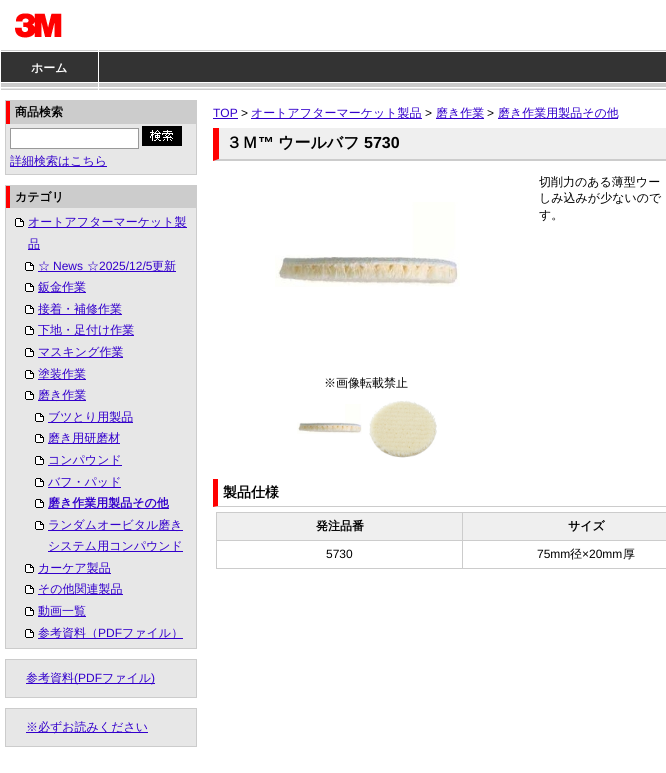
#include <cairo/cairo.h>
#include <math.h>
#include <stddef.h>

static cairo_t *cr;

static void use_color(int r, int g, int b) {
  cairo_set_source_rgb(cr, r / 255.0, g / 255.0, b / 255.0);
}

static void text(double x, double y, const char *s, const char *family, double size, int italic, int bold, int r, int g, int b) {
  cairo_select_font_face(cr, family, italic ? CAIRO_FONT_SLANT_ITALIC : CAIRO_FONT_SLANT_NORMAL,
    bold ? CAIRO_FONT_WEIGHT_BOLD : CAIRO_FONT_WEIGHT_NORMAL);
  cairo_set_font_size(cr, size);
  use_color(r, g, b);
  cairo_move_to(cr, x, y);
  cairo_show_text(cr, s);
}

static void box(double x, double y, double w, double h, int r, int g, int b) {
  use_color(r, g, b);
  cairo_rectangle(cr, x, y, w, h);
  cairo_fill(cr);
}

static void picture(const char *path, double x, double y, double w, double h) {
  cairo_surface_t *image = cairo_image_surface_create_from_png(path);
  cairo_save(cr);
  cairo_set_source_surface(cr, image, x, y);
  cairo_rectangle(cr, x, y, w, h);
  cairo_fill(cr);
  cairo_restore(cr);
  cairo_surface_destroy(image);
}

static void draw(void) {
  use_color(255, 255, 255);
  cairo_paint(cr);
  picture("img_01.png", 15, 13, 47, 25);
  picture("img_02.png", 1, 50, 665, 40);
  box(98, 50, 1, 40, 255, 255, 255);
  box(6, 124, 190, 50, 231, 231, 231);
  cairo_rectangle(cr, 5.5, 100.5, 191, 74);
  use_color(204, 204, 204);
  cairo_set_line_width(cr, 1);
  cairo_stroke(cr);
  box(10, 101, 186, 23, 204, 204, 204);
  box(6, 101, 4, 23, 255, 0, 0);
  use_color(255, 255, 255);
  cairo_rectangle(cr, 10.5, 128.5, 128, 20);
  cairo_fill_preserve(cr);
  use_color(153, 153, 153);
  cairo_stroke(cr);
  picture("img_03.png", 142, 126, 40, 20);
  box(10, 166, 97, 1, 51, 0, 204);
  box(6, 208, 190, 440, 231, 231, 231);
  cairo_rectangle(cr, 5.5, 185.5, 191, 463);
  use_color(204, 204, 204);
  cairo_stroke(cr);
  box(10, 186, 186, 22, 204, 204, 204);
  box(6, 186, 4, 22, 255, 0, 0);
  picture("img_04.png", 15, 218, 9, 9);
  box(28, 227, 159, 1, 51, 0, 204);
  box(28, 249, 12, 1, 51, 0, 204);
  picture("img_04.png", 25, 262, 9, 9);
  box(38, 271, 138, 1, 51, 0, 204);
  picture("img_04.png", 25, 283, 9, 9);
  box(38, 292, 48, 1, 51, 0, 204);
  picture("img_04.png", 25, 305, 9, 9);
  box(38, 314, 84, 1, 51, 0, 204);
  picture("img_04.png", 25, 326, 9, 9);
  box(38, 335, 96, 1, 51, 0, 204);
  picture("img_04.png", 25, 348, 9, 9);
  box(38, 357, 85, 1, 51, 0, 204);
  picture("img_04.png", 25, 370, 9, 9);
  box(38, 379, 48, 1, 51, 0, 204);
  picture("img_04.png", 25, 391, 9, 9);
  box(38, 400, 48, 1, 51, 0, 204);
  picture("img_04.png", 35, 413, 9, 9);
  box(48, 422, 85, 1, 51, 0, 204);
  picture("img_04.png", 35, 434, 9, 9);
  box(48, 443, 72, 1, 51, 0, 204);
  picture("img_04.png", 35, 456, 9, 9);
  box(48, 465, 74, 1, 51, 0, 204);
  picture("img_04.png", 35, 478, 9, 9);
  box(48, 487, 73, 1, 51, 0, 204);
  picture("img_04.png", 35, 499, 9, 9);
  box(48, 508, 121, 1, 51, 0, 204);
  picture("img_04.png", 35, 521, 9, 9);
  box(48, 530, 135, 1, 51, 0, 204);
  box(48, 551, 135, 1, 51, 0, 204);
  picture("img_04.png", 25, 564, 9, 9);
  box(38, 573, 73, 1, 51, 0, 204);
  picture("img_04.png", 25, 585, 9, 9);
  box(38, 594, 85, 1, 51, 0, 204);
  picture("img_04.png", 25, 607, 9, 9);
  box(38, 616, 48, 1, 51, 0, 204);
  picture("img_04.png", 25, 629, 9, 9);
  box(38, 638, 145, 1, 51, 0, 204);
  use_color(231, 231, 231);
  cairo_rectangle(cr, 5.5, 659.5, 191, 38);
  cairo_fill_preserve(cr);
  use_color(204, 204, 204);
  cairo_stroke(cr);
  box(26, 683, 129, 1, 51, 0, 204);
  use_color(231, 231, 231);
  cairo_rectangle(cr, 5.5, 708.5, 191, 38);
  cairo_fill_preserve(cr);
  use_color(204, 204, 204);
  cairo_stroke(cr);
  box(26, 732, 122, 1, 51, 0, 204);
  box(213, 118, 25, 1, 51, 0, 204);
  box(251, 118, 171, 1, 51, 0, 204);
  box(436, 118, 48, 1, 51, 0, 204);
  box(498, 118, 120, 1, 51, 0, 204);
  box(213, 128, 453, 33, 239, 239, 239);
  use_color(204, 204, 204);
  cairo_new_path(cr);
  cairo_move_to(cr, 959, 161);
  cairo_line_to(cr, 213, 161);
  cairo_line_to(cr, 219, 159);
  cairo_line_to(cr, 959, 159);
  cairo_close_path(cr);
  cairo_fill(cr);
  use_color(255, 0, 0);
  cairo_new_path(cr);
  cairo_move_to(cr, 213, 161);
  cairo_line_to(cr, 213, 128);
  cairo_line_to(cr, 219, 128);
  cairo_line_to(cr, 219, 159);
  cairo_close_path(cr);
  cairo_fill(cr);
  picture("img_05.png", 275, 202, 185, 85);
  picture("img_06.png", 297, 404, 65, 30);
  picture("img_07.png", 369, 400, 68, 58);
  use_color(204, 204, 204);
  cairo_new_path(cr);
  cairo_move_to(cr, 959, 507);
  cairo_line_to(cr, 213, 507);
  cairo_line_to(cr, 218, 506);
  cairo_line_to(cr, 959, 506);
  cairo_close_path(cr);
  cairo_fill(cr);
  use_color(255, 0, 0);
  cairo_new_path(cr);
  cairo_move_to(cr, 213, 507);
  cairo_line_to(cr, 213, 479);
  cairo_line_to(cr, 218, 479);
  cairo_line_to(cr, 218, 506);
  cairo_close_path(cr);
  cairo_fill(cr);
  box(216, 512, 450, 1, 204, 204, 204);
  box(216, 568, 450, 1, 204, 204, 204);
  box(216, 512, 1, 57, 204, 204, 204);
  box(217, 513, 245, 27, 239, 239, 239);
  box(463, 513, 203, 27, 239, 239, 239);
  box(462, 540, 204, 1, 204, 204, 204);
  box(462, 540, 1, 29, 204, 204, 204);
  box(216, 540, 247, 1, 204, 204, 204);
  box(462, 512, 1, 29, 204, 204, 204);
  text(31, 72, "ホーム", "WenQuanYi Zen Hei", 12, 0, 1, 255, 255, 255);
  text(15, 116, "商品検索", "WenQuanYi Zen Hei", 12, 0, 1, 0, 0, 0);
  text(10, 165, "詳細検索はこちら", "WenQuanYi Zen Hei Medium", 12, 0, 0, 51, 0, 204);
  text(15, 201, "カテゴリ", "WenQuanYi Zen Hei", 12, 0, 1, 0, 0, 0);
  text(28, 226, "オートアフターマーケット製", "WenQuanYi Zen Hei Medium", 12, 0, 0, 51, 0, 204);
  text(28, 248, "品", "WenQuanYi Zen Hei Medium", 12, 0, 0, 51, 0, 204);
  text(38, 270, "☆", "WenQuanYi Zen Hei Medium", 12, 0, 0, 51, 0, 204);
  text(53, 270, "News", "Liberation Sans", 12, 0, 0, 51, 0, 204);
  text(87, 270, "☆", "WenQuanYi Zen Hei Medium", 12, 0, 0, 51, 0, 204);
  text(99, 270, "2025/12/5", "Liberation Sans", 12, 0, 0, 51, 0, 204);
  text(152, 270, "更新", "WenQuanYi Zen Hei Medium", 12, 0, 0, 51, 0, 204);
  text(38, 291, "鈑金作業", "WenQuanYi Zen Hei Medium", 12, 0, 0, 51, 0, 204);
  text(38, 313, "接着・補修作業", "WenQuanYi Zen Hei Medium", 12, 0, 0, 51, 0, 204);
  text(38, 334, "下地・足付け作業", "WenQuanYi Zen Hei Medium", 12, 0, 0, 51, 0, 204);
  text(38, 356, "マスキング作業", "WenQuanYi Zen Hei Medium", 12, 0, 0, 51, 0, 204);
  text(38, 378, "塗装作業", "WenQuanYi Zen Hei Medium", 12, 0, 0, 51, 0, 204);
  text(38, 399, "磨き作業", "WenQuanYi Zen Hei Medium", 12, 0, 0, 51, 0, 204);
  text(48, 421, "ブツとり用製品", "WenQuanYi Zen Hei Medium", 12, 0, 0, 51, 0, 204);
  text(48, 442, "磨き用研磨材", "WenQuanYi Zen Hei Medium", 12, 0, 0, 51, 0, 204);
  text(48, 464, "コンパウンド", "WenQuanYi Zen Hei Medium", 12, 0, 0, 51, 0, 204);
  text(48, 486, "バフ・パッド", "WenQuanYi Zen Hei Medium", 12, 0, 0, 51, 0, 204);
  text(48, 507, "磨き作業用製品その他", "WenQuanYi Zen Hei", 12, 0, 1, 51, 0, 204);
  text(48, 529, "ランダムオービタル磨き", "WenQuanYi Zen Hei Medium", 12, 0, 0, 51, 0, 204);
  text(48, 550, "システム用コンパウンド", "WenQuanYi Zen Hei Medium", 12, 0, 0, 51, 0, 204);
  text(38, 572, "カーケア製品", "WenQuanYi Zen Hei Medium", 12, 0, 0, 51, 0, 204);
  text(38, 593, "その他関連製品", "WenQuanYi Zen Hei Medium", 12, 0, 0, 51, 0, 204);
  text(38, 615, "動画一覧", "WenQuanYi Zen Hei Medium", 12, 0, 0, 51, 0, 204);
  text(38, 637, "参考資料（", "WenQuanYi Zen Hei Medium", 12, 0, 0, 51, 0, 204);
  text(98, 637, "PDF", "Liberation Sans", 12, 0, 0, 51, 0, 204);
  text(122, 637, "ファイル）", "WenQuanYi Zen Hei Medium", 12, 0, 0, 51, 0, 204);
  text(26, 682, "参考資料", "WenQuanYi Zen Hei Medium", 12, 0, 0, 51, 0, 204);
  text(74, 682, "(PDF", "Liberation Sans", 12, 0, 0, 51, 0, 204);
  text(102, 682, "ファイル", "WenQuanYi Zen Hei Medium", 12, 0, 0, 51, 0, 204);
  text(151, 682, ")", "Liberation Sans", 12, 0, 0, 51, 0, 204);
  text(26, 731, "※必ずお読みください", "WenQuanYi Zen Hei Medium", 12, 0, 0, 51, 0, 204);
  text(213, 117, "TOP", "Liberation Sans", 12, 0, 0, 51, 0, 204);
  text(241, 117, ">", "Liberation Sans", 12, 0, 0, 0, 0, 0);
  text(251, 117, "オートアフターマーケット製品", "WenQuanYi Zen Hei Medium", 12, 0, 0, 51, 0, 204);
  text(425, 117, ">", "Liberation Sans", 12, 0, 0, 0, 0, 0);
  text(436, 117, "磨き作業", "WenQuanYi Zen Hei Medium", 12, 0, 0, 51, 0, 204);
  text(487, 117, ">", "Liberation Sans", 12, 0, 0, 0, 0, 0);
  text(498, 117, "磨き作業用製品その他", "WenQuanYi Zen Hei Medium", 12, 0, 0, 51, 0, 204);
  text(226, 148, "３Ｍ", "WenQuanYi Zen Hei", 16, 0, 1, 0, 0, 0);
  text(258, 148, "™", "Liberation Sans", 16, 0, 1, 0, 0, 0);
  text(278, 148, "ウールバフ", "WenQuanYi Zen Hei", 16, 0, 1, 0, 0, 0);
  text(364, 148, "5730", "Liberation Sans", 16, 0, 1, 0, 0, 0);
  text(539, 186, "切削力のある薄型ウー", "WenQuanYi Zen Hei Medium", 12, 0, 0, 0, 0, 0);
  text(539, 202, "しみ込みが少ないので", "WenQuanYi Zen Hei Medium", 12, 0, 0, 0, 0, 0);
  text(539, 219, "す。", "WenQuanYi Zen Hei Medium", 12, 0, 0, 0, 0, 0);
  text(324, 387, "※画像転載禁止", "WenQuanYi Zen Hei Medium", 12, 0, 0, 0, 0, 0);
  text(223, 497, "製品仕様", "WenQuanYi Zen Hei", 14, 0, 1, 0, 0, 0);
  text(316, 530, "発注品番", "WenQuanYi Zen Hei", 12, 0, 1, 0, 0, 0);
  text(568, 530, "サイズ", "WenQuanYi Zen Hei", 12, 0, 1, 0, 0, 0);
  text(326, 558, "5730", "Liberation Sans", 12, 0, 0, 0, 0, 0);
  text(537, 558, "75mm", "Liberation Sans", 12, 0, 0, 0, 0, 0);
  text(570, 558, "径", "WenQuanYi Zen Hei Medium", 12, 0, 0, 0, 0, 0);
  text(582, 558, "×20mm", "Liberation Sans", 12, 0, 0, 0, 0, 0);
  text(623, 558, "厚", "WenQuanYi Zen Hei Medium", 12, 0, 0, 0, 0, 0);
}

int main(void) {
  cairo_surface_t *surface = cairo_image_surface_create(CAIRO_FORMAT_RGB24, 666, 773);
  cr = cairo_create(surface);
  cairo_font_options_t *options = cairo_font_options_create();
  cairo_font_options_set_hint_metrics(options, CAIRO_HINT_METRICS_OFF);
  cairo_font_options_set_hint_style(options, CAIRO_HINT_STYLE_NONE);
  cairo_set_font_options(cr, options);
  cairo_set_miter_limit(cr, 4);
  draw();
  cairo_surface_write_to_png(surface, "out.png");
  cairo_font_options_destroy(options);
  cairo_destroy(cr);
  cairo_surface_destroy(surface);
  return 0;
}
